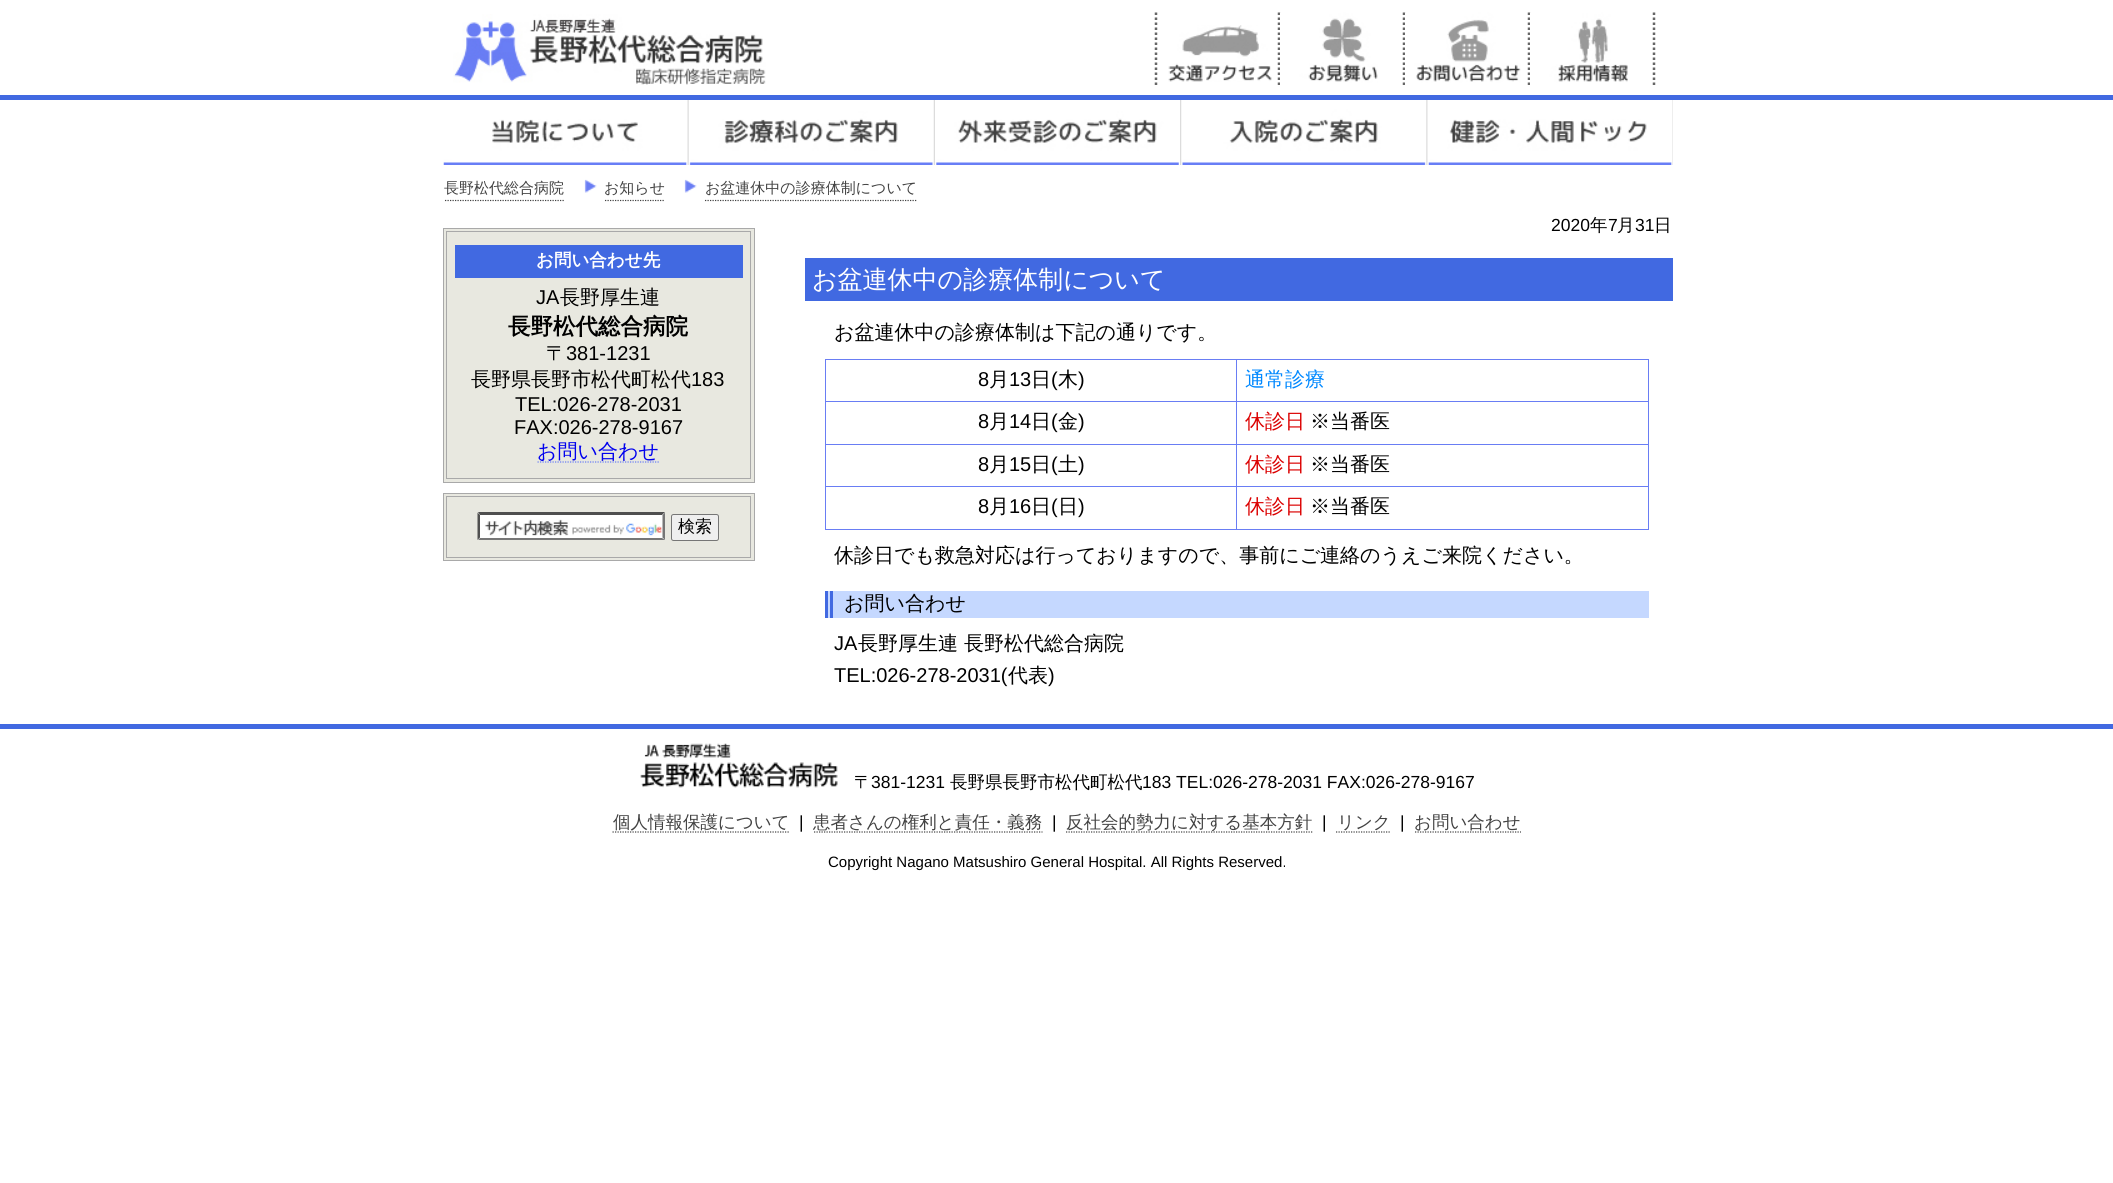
#include <cairo/cairo.h>
#include <math.h>
#include <stddef.h>

static cairo_t *cr;

static void use_color(int r, int g, int b) {
  cairo_set_source_rgb(cr, r / 255.0, g / 255.0, b / 255.0);
}

static void text(double x, double y, const char *s, const char *family, double size, int italic, int bold, int r, int g, int b) {
  cairo_select_font_face(cr, family, italic ? CAIRO_FONT_SLANT_ITALIC : CAIRO_FONT_SLANT_NORMAL,
    bold ? CAIRO_FONT_WEIGHT_BOLD : CAIRO_FONT_WEIGHT_NORMAL);
  cairo_set_font_size(cr, size);
  use_color(r, g, b);
  cairo_move_to(cr, x, y);
  cairo_show_text(cr, s);
}

static void box(double x, double y, double w, double h, int r, int g, int b) {
  use_color(r, g, b);
  cairo_rectangle(cr, x, y, w, h);
  cairo_fill(cr);
}

static void round_rect(double x, double y, double w, double h, double r) {
  cairo_new_sub_path(cr);
  cairo_arc(cr, x + w - r, y + h - r, r, 0, M_PI / 2);
  cairo_arc(cr, x + r, y + h - r, r, M_PI / 2, M_PI);
  cairo_arc(cr, x + r, y + r, r, M_PI, 1.5 * M_PI);
  cairo_arc(cr, x + w - r, y + r, r, 1.5 * M_PI, 2 * M_PI);
  cairo_close_path(cr);
}

static void picture(const char *path, double x, double y, double w, double h) {
  cairo_surface_t *image = cairo_image_surface_create_from_png(path);
  cairo_save(cr);
  cairo_set_source_surface(cr, image, x, y);
  cairo_rectangle(cr, x, y, w, h);
  cairo_fill(cr);
  cairo_restore(cr);
  cairo_surface_destroy(image);
}

static void draw(void) {
  use_color(255, 255, 255);
  cairo_paint(cr);
  box(0, 95, 2113, 5, 65, 105, 225);
  picture("img_01.png", 453, 14, 313, 71);
  picture("img_02.png", 1168, 25, 104, 57);
  cairo_new_path(cr);
  cairo_move_to(cr, 1279, 12.5);
  cairo_line_to(cr, 1279, 87.5);
  use_color(102, 102, 102);
  cairo_set_line_width(cr, 2.5);
  cairo_set_dash(cr, (double[]){2.5, 2.5}, 2, 0);
  cairo_stroke(cr);
  cairo_new_path(cr);
  cairo_move_to(cr, 1156, 12.5);
  cairo_line_to(cr, 1156, 87.5);
  cairo_stroke(cr);
  picture("img_03.png", 1280, 12, 98, 73);
  cairo_new_path(cr);
  cairo_move_to(cr, 1404, 12.5);
  cairo_line_to(cr, 1404, 87.5);
  cairo_stroke(cr);
  picture("img_04.png", 1405, 12, 116, 73);
  cairo_new_path(cr);
  cairo_move_to(cr, 1529, 12.5);
  cairo_line_to(cr, 1529, 87.5);
  cairo_stroke(cr);
  picture("img_05.png", 1530, 12, 98, 73);
  cairo_new_path(cr);
  cairo_move_to(cr, 1654, 12.5);
  cairo_line_to(cr, 1654, 87.5);
  cairo_stroke(cr);
  box(687, 100, 986, 65, 220, 220, 220);
  picture("img_06.png", 443, 100, 245, 65);
  picture("img_07.png", 688, 100, 246, 65);
  picture("img_08.png", 935, 100, 245, 65);
  picture("img_09.png", 1181, 100, 246, 65);
  picture("img_10.png", 1427, 100, 246, 65);
  cairo_new_path(cr);
  cairo_move_to(cr, 445, 200.5);
  cairo_line_to(cr, 565, 200.5);
  use_color(66, 66, 66);
  cairo_set_line_width(cr, 1.2);
  cairo_set_dash(cr, (double[]){1.25, 1.25}, 2, 0);
  cairo_stroke(cr);
  picture("img_11.png", 584, 179, 13, 14);
  cairo_new_path(cr);
  cairo_move_to(cr, 605, 200.5);
  cairo_line_to(cr, 665, 200.5);
  cairo_stroke(cr);
  picture("img_11.png", 684, 179, 13, 14);
  cairo_new_path(cr);
  cairo_move_to(cr, 705, 200.5);
  cairo_line_to(cr, 917.5, 200.5);
  cairo_stroke(cr);
  use_color(232, 232, 224);
  cairo_rectangle(cr, 443.5, 228.5, 311, 254);
  cairo_fill_preserve(cr);
  use_color(169, 169, 169);
  cairo_set_line_width(cr, 1);
  cairo_set_dash(cr, NULL, 0, 0);
  cairo_stroke(cr);
  cairo_rectangle(cr, 446.5, 231.5, 304, 247);
  cairo_stroke(cr);
  box(455, 245, 288, 33, 65, 105, 225);
  cairo_new_path(cr);
  cairo_move_to(cr, 537.5, 462);
  cairo_line_to(cr, 659, 462);
  use_color(105, 125, 244);
  cairo_set_line_width(cr, 1.2);
  cairo_set_dash(cr, (double[]){1.25, 1.25}, 2, 0);
  cairo_stroke(cr);
  use_color(232, 232, 224);
  cairo_rectangle(cr, 443.5, 493.5, 311, 67);
  cairo_fill_preserve(cr);
  use_color(169, 169, 169);
  cairo_set_line_width(cr, 1);
  cairo_set_dash(cr, NULL, 0, 0);
  cairo_stroke(cr);
  cairo_rectangle(cr, 446.5, 496.5, 304, 61);
  cairo_stroke(cr);
  box(478, 513, 187, 27, 255, 255, 255);
  picture("img_12.png", 484, 519, 178, 17);
  use_color(79, 79, 79);
  cairo_new_path(cr);
  cairo_move_to(cr, 478, 512);
  cairo_line_to(cr, 665, 512);
  cairo_line_to(cr, 662, 515);
  cairo_line_to(cr, 480, 515);
  cairo_close_path(cr);
  cairo_fill(cr);
  use_color(118, 118, 118);
  cairo_new_path(cr);
  cairo_move_to(cr, 665, 512.5);
  cairo_line_to(cr, 665, 540);
  cairo_line_to(cr, 662.5, 537.5);
  cairo_line_to(cr, 662.5, 515);
  cairo_close_path(cr);
  cairo_fill(cr);
  cairo_new_path(cr);
  cairo_move_to(cr, 665, 540);
  cairo_line_to(cr, 478, 540);
  cairo_line_to(cr, 480, 538);
  cairo_line_to(cr, 662, 538);
  cairo_close_path(cr);
  cairo_fill(cr);
  use_color(79, 79, 79);
  cairo_new_path(cr);
  cairo_move_to(cr, 477.5, 540);
  cairo_line_to(cr, 477.5, 512.5);
  cairo_line_to(cr, 480, 515);
  cairo_line_to(cr, 480, 537.5);
  cairo_close_path(cr);
  cairo_fill(cr);
  use_color(239, 239, 239);
  round_rect(671.5, 514.5, 47, 26, 2);
  cairo_fill_preserve(cr);
  use_color(118, 118, 118);
  cairo_stroke(cr);
  box(805, 258, 868, 43, 65, 105, 225);
  box(825, 359, 824, 1, 105, 125, 244);
  box(825, 359, 1, 171, 105, 125, 244);
  box(1648, 359, 1, 171, 105, 125, 244);
  box(1236, 529, 413, 1, 105, 125, 244);
  box(1236, 486, 1, 44, 105, 125, 244);
  box(1236, 486, 413, 1, 105, 125, 244);
  box(1236, 444, 1, 44, 105, 125, 244);
  box(1236, 444, 413, 1, 105, 125, 244);
  box(1236, 401, 1, 44, 105, 125, 244);
  box(1236, 401, 413, 1, 105, 125, 244);
  box(1236, 359, 1, 44, 105, 125, 244);
  box(825, 401, 413, 1, 105, 125, 244);
  box(825, 444, 413, 1, 105, 125, 244);
  box(825, 486, 413, 1, 105, 125, 244);
  box(825, 529, 413, 1, 105, 125, 244);
  box(828, 591, 821, 27, 197, 216, 255);
  box(825, 591, 3, 27, 65, 105, 225);
  box(830, 591, 3, 27, 65, 105, 225);
  box(0, 724, 2113, 5, 65, 105, 225);
  picture("img_13.png", 640, 743, 198, 45);
  cairo_new_path(cr);
  cairo_move_to(cr, 612.5, 832);
  cairo_line_to(cr, 789, 832);
  use_color(66, 66, 66);
  cairo_set_line_width(cr, 1.2);
  cairo_set_dash(cr, (double[]){1.25, 1.25}, 2, 0);
  cairo_stroke(cr);
  cairo_new_path(cr);
  cairo_move_to(cr, 814, 832);
  cairo_line_to(cr, 1042.5, 832);
  cairo_stroke(cr);
  cairo_new_path(cr);
  cairo_move_to(cr, 1066, 832);
  cairo_line_to(cr, 1312.5, 832);
  cairo_stroke(cr);
  cairo_new_path(cr);
  cairo_move_to(cr, 1336, 832);
  cairo_line_to(cr, 1390, 832);
  cairo_stroke(cr);
  cairo_new_path(cr);
  cairo_move_to(cr, 1415, 832);
  cairo_line_to(cr, 1521, 832);
  cairo_stroke(cr);
  text(444, 193, "長野松代総合病院", "WenQuanYi Zen Hei Medium", 15, 0, 0, 66, 66, 66);
  text(604, 193, "お知らせ", "WenQuanYi Zen Hei Medium", 15, 0, 0, 66, 66, 66);
  text(705, 193, "お盆連休中の診療体制について", "WenQuanYi Zen Hei Medium", 15, 0, 0, 66, 66, 66);
  text(536, 266, "お問い合わせ先", "WenQuanYi Zen Hei", 17.5, 0, 1, 255, 255, 255);
  text(536, 304, "JA", "Liberation Sans", 20, 0, 0, 0, 0, 0);
  text(560, 304, "長野厚生連", "WenQuanYi Zen Hei Medium", 20, 0, 0, 0, 0, 0);
  text(508, 334, "長野松代総合病院", "WenQuanYi Zen Hei", 22.5, 0, 1, 0, 0, 0);
  text(546, 360, "〒", "WenQuanYi Zen Hei Medium", 20, 0, 0, 0, 0, 0);
  text(566, 360, "381-1231", "Liberation Sans", 20, 0, 0, 0, 0, 0);
  text(471, 386, "長野県長野市松代町松代", "WenQuanYi Zen Hei Medium", 20, 0, 0, 0, 0, 0);
  text(691, 386, "183", "Liberation Sans", 20, 0, 0, 0, 0, 0);
  text(515, 411, "TEL:026-278-2031", "Liberation Sans", 20, 0, 0, 0, 0, 0);
  text(514, 434, "FAX:026-278-9167", "Liberation Sans", 20, 0, 0, 0, 0, 0);
  text(537, 458, "お問い合わせ", "WenQuanYi Zen Hei Medium", 20, 0, 0, 0, 0, 238);
  text(678, 532, "検索", "WenQuanYi Zen Hei Medium", 17, 0, 0, 0, 0, 0);
  text(1551, 231, "2020", "Liberation Sans", 17.5, 0, 0, 0, 0, 0);
  text(1590, 231, "年", "WenQuanYi Zen Hei Medium", 17.5, 0, 0, 0, 0, 0);
  text(1608, 231, "7", "Liberation Sans", 17.5, 0, 0, 0, 0, 0);
  text(1617, 231, "月", "WenQuanYi Zen Hei Medium", 17.5, 0, 0, 0, 0, 0);
  text(1635, 231, "31", "Liberation Sans", 17.5, 0, 0, 0, 0, 0);
  text(1654, 231, "日", "WenQuanYi Zen Hei Medium", 17.5, 0, 0, 0, 0, 0);
  text(812, 288, "お盆連休中の診療体制について", "WenQuanYi Zen Hei Medium", 25, 0, 0, 255, 255, 255);
  text(834, 339, "お盆連休中の診療体制は下記の通りです。", "WenQuanYi Zen Hei Medium", 20, 0, 0, 0, 0, 0);
  text(978, 386, "8", "Liberation Sans", 20, 0, 0, 0, 0, 0);
  text(989, 386, "月", "WenQuanYi Zen Hei Medium", 20, 0, 0, 0, 0, 0);
  text(1009, 386, "13", "Liberation Sans", 20, 0, 0, 0, 0, 0);
  text(1031, 386, "日", "WenQuanYi Zen Hei Medium", 20, 0, 0, 0, 0, 0);
  text(1051, 386, "(", "Liberation Sans", 20, 0, 0, 0, 0, 0);
  text(1058, 386, "木", "WenQuanYi Zen Hei Medium", 20, 0, 0, 0, 0, 0);
  text(1078, 386, ")", "Liberation Sans", 20, 0, 0, 0, 0, 0);
  text(1245, 386, "通常診療", "WenQuanYi Zen Hei Medium", 20, 0, 0, 0, 136, 255);
  text(978, 428, "8", "Liberation Sans", 20, 0, 0, 0, 0, 0);
  text(989, 428, "月", "WenQuanYi Zen Hei Medium", 20, 0, 0, 0, 0, 0);
  text(1009, 428, "14", "Liberation Sans", 20, 0, 0, 0, 0, 0);
  text(1031, 428, "日", "WenQuanYi Zen Hei Medium", 20, 0, 0, 0, 0, 0);
  text(1051, 428, "(", "Liberation Sans", 20, 0, 0, 0, 0, 0);
  text(1058, 428, "金", "WenQuanYi Zen Hei Medium", 20, 0, 0, 0, 0, 0);
  text(1078, 428, ")", "Liberation Sans", 20, 0, 0, 0, 0, 0);
  text(1245, 428, "休診日", "WenQuanYi Zen Hei Medium", 20, 0, 0, 219, 0, 0);
  text(1310, 428, "※当番医", "WenQuanYi Zen Hei Medium", 20, 0, 0, 0, 0, 0);
  text(978, 471, "8", "Liberation Sans", 20, 0, 0, 0, 0, 0);
  text(989, 471, "月", "WenQuanYi Zen Hei Medium", 20, 0, 0, 0, 0, 0);
  text(1009, 471, "15", "Liberation Sans", 20, 0, 0, 0, 0, 0);
  text(1031, 471, "日", "WenQuanYi Zen Hei Medium", 20, 0, 0, 0, 0, 0);
  text(1051, 471, "(", "Liberation Sans", 20, 0, 0, 0, 0, 0);
  text(1058, 471, "土", "WenQuanYi Zen Hei Medium", 20, 0, 0, 0, 0, 0);
  text(1078, 471, ")", "Liberation Sans", 20, 0, 0, 0, 0, 0);
  text(1245, 471, "休診日", "WenQuanYi Zen Hei Medium", 20, 0, 0, 219, 0, 0);
  text(1310, 471, "※当番医", "WenQuanYi Zen Hei Medium", 20, 0, 0, 0, 0, 0);
  text(978, 513, "8", "Liberation Sans", 20, 0, 0, 0, 0, 0);
  text(989, 513, "月", "WenQuanYi Zen Hei Medium", 20, 0, 0, 0, 0, 0);
  text(1009, 513, "16", "Liberation Sans", 20, 0, 0, 0, 0, 0);
  text(1031, 513, "日", "WenQuanYi Zen Hei Medium", 20, 0, 0, 0, 0, 0);
  text(1051, 513, "(", "Liberation Sans", 20, 0, 0, 0, 0, 0);
  text(1058, 513, "日", "WenQuanYi Zen Hei Medium", 20, 0, 0, 0, 0, 0);
  text(1078, 513, ")", "Liberation Sans", 20, 0, 0, 0, 0, 0);
  text(1245, 513, "休診日", "WenQuanYi Zen Hei Medium", 20, 0, 0, 219, 0, 0);
  text(1310, 513, "※当番医", "WenQuanYi Zen Hei Medium", 20, 0, 0, 0, 0, 0);
  text(834, 562, "休診日でも救急対応は行っておりますので、事前にご連絡のうえご来院ください。", "WenQuanYi Zen Hei Medium", 20, 0, 0, 0, 0, 0);
  text(844, 610, "お問い合わせ", "WenQuanYi Zen Hei Medium", 20, 0, 0, 0, 0, 0);
  text(834, 650, "JA", "Liberation Sans", 20, 0, 0, 0, 0, 0);
  text(858, 650, "長野厚生連 長野松代総合病院", "WenQuanYi Zen Hei Medium", 20, 0, 0, 0, 0, 0);
  text(834, 682, "TEL:026-278-2031(", "Liberation Sans", 20, 0, 0, 0, 0, 0);
  text(1008, 682, "代表", "WenQuanYi Zen Hei Medium", 20, 0, 0, 0, 0, 0);
  text(1048, 682, ")", "Liberation Sans", 20, 0, 0, 0, 0, 0);
  text(854, 788, "〒", "WenQuanYi Zen Hei Medium", 17.5, 0, 0, 0, 0, 0);
  text(871, 788, "381-1231", "Liberation Sans", 17.5, 0, 0, 0, 0, 0);
  text(950, 788, "長野県長野市松代町松代", "WenQuanYi Zen Hei Medium", 17.5, 0, 0, 0, 0, 0);
  text(1142, 788, "183 TEL:026-278-2031 FAX:026-278-9167", "Liberation Sans", 17.5, 0, 0, 0, 0, 0);
  text(613, 828, "個人情報保護について", "WenQuanYi Zen Hei Medium", 17.5, 0, 0, 66, 66, 66);
  text(799, 828, "|", "Liberation Sans", 17.5, 0, 0, 0, 0, 0);
  text(813, 828, "患者さんの権利と責任・義務", "WenQuanYi Zen Hei Medium", 17.5, 0, 0, 66, 66, 66);
  text(1052, 828, "|", "Liberation Sans", 17.5, 0, 0, 0, 0, 0);
  text(1066, 828, "反社会的勢力に対する基本方針", "WenQuanYi Zen Hei Medium", 17.5, 0, 0, 66, 66, 66);
  text(1322, 828, "|", "Liberation Sans", 17.5, 0, 0, 0, 0, 0);
  text(1337, 828, "リンク", "WenQuanYi Zen Hei Medium", 17.5, 0, 0, 66, 66, 66);
  text(1400, 828, "|", "Liberation Sans", 17.5, 0, 0, 0, 0, 0);
  text(1414, 828, "お問い合わせ", "WenQuanYi Zen Hei Medium", 17.5, 0, 0, 66, 66, 66);
  text(828, 867, "Copyright Nagano Matsushiro General Hospital. All Rights Reserved.", "Liberation Sans", 15, 0, 0, 0, 0, 0);
}

int main(void) {
  cairo_surface_t *surface = cairo_image_surface_create(CAIRO_FORMAT_RGB24, 2113, 1183);
  cr = cairo_create(surface);
  cairo_font_options_t *options = cairo_font_options_create();
  cairo_font_options_set_hint_metrics(options, CAIRO_HINT_METRICS_OFF);
  cairo_font_options_set_hint_style(options, CAIRO_HINT_STYLE_NONE);
  cairo_set_font_options(cr, options);
  cairo_set_miter_limit(cr, 4);
  draw();
  cairo_surface_write_to_png(surface, "out.png");
  cairo_font_options_destroy(options);
  cairo_destroy(cr);
  cairo_surface_destroy(surface);
  return 0;
}
